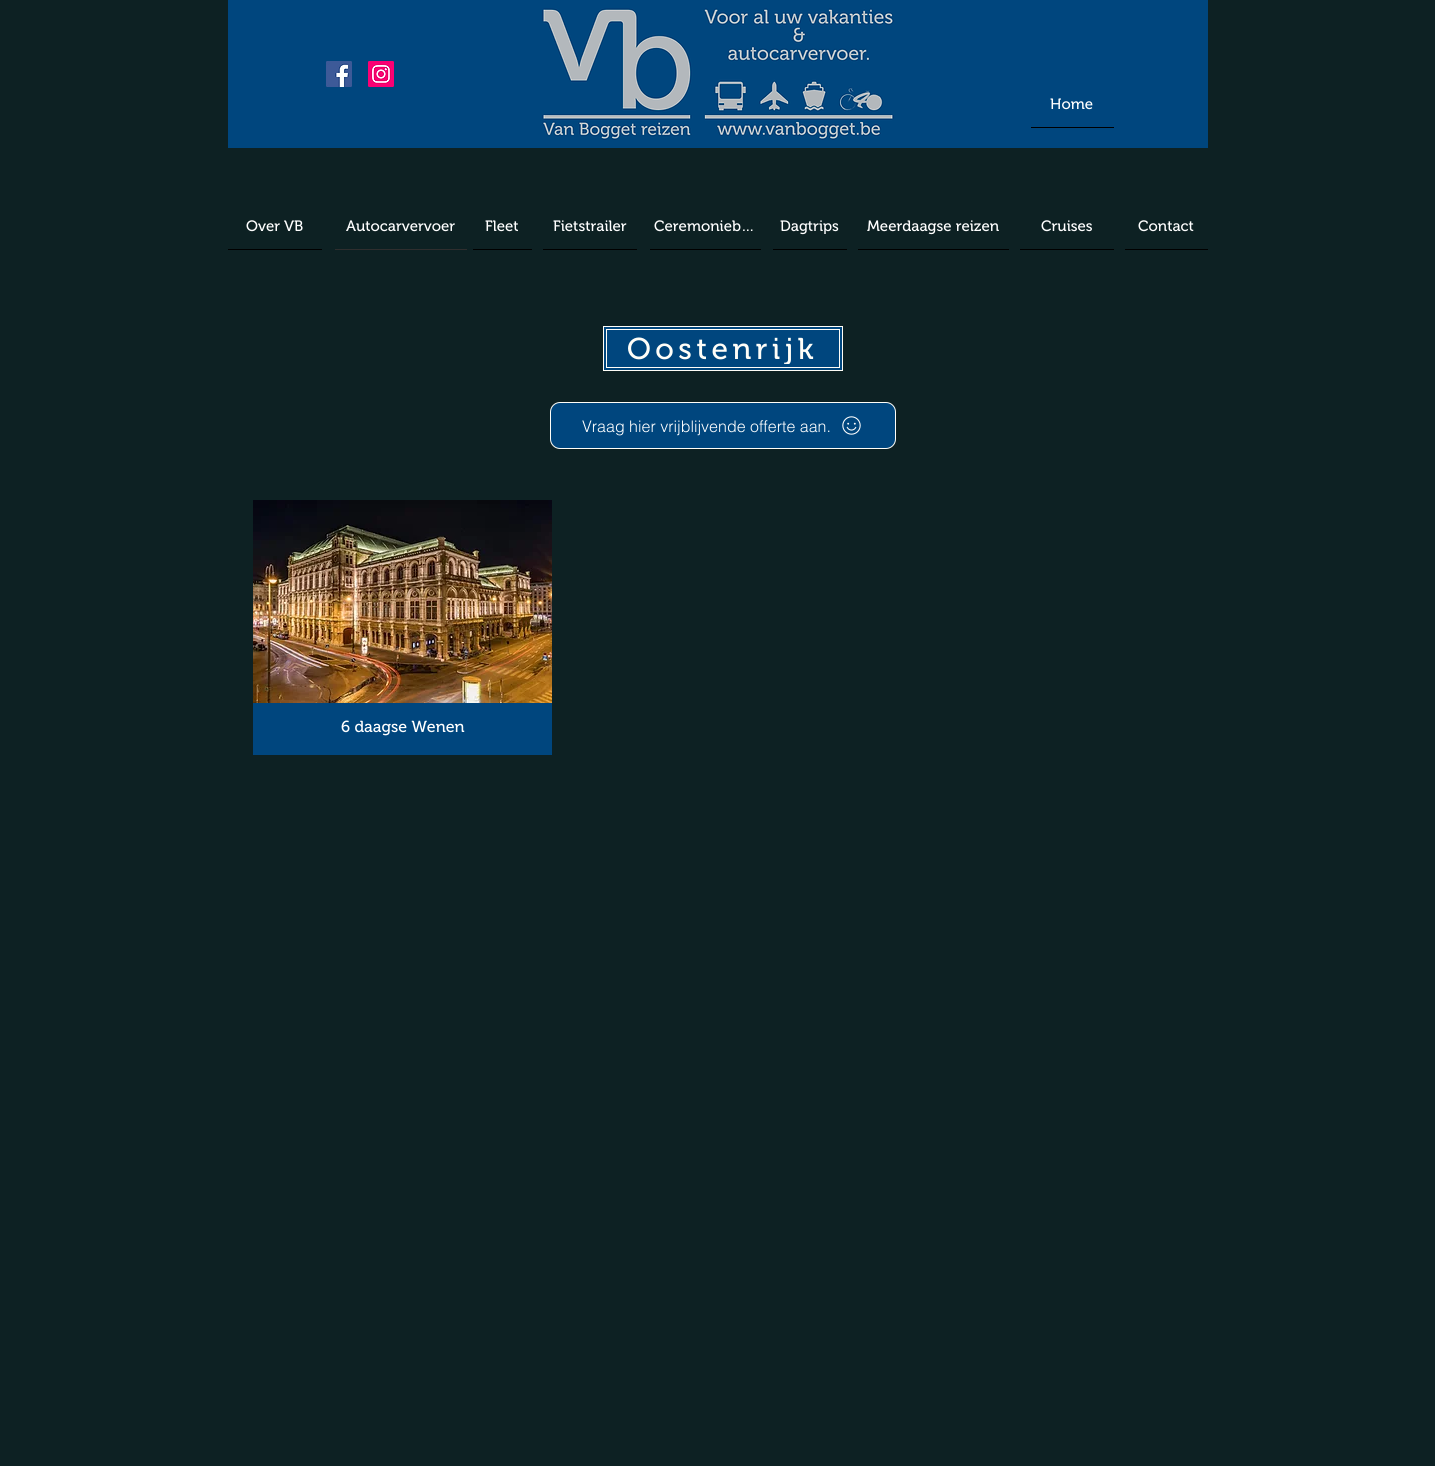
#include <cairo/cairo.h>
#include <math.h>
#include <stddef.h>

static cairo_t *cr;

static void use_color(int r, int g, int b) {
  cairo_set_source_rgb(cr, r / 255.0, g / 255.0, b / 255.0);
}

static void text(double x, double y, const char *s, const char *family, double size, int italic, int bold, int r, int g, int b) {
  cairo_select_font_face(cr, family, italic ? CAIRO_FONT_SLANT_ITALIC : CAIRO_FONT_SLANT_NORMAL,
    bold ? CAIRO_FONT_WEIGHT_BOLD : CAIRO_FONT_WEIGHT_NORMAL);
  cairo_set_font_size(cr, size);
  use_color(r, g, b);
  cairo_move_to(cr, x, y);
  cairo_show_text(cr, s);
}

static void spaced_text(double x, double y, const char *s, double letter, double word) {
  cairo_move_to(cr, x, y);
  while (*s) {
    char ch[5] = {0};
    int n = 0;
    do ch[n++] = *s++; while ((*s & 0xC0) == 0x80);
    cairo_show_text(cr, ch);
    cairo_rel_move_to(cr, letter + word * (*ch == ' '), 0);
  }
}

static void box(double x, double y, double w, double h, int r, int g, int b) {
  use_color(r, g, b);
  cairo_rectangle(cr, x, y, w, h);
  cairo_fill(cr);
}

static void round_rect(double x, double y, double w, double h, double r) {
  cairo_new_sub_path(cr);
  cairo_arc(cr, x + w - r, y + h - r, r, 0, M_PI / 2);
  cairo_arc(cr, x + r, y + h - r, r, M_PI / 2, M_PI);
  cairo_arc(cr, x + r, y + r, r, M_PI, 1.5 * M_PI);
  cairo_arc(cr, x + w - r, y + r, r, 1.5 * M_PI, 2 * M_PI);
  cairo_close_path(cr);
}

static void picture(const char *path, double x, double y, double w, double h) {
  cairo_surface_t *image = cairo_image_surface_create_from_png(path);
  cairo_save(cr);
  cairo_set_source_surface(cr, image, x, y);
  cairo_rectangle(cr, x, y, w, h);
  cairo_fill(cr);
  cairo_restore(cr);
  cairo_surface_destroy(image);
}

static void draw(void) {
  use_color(13, 33, 35);
  cairo_paint(cr);
  box(228, 0, 980, 148, 0, 70, 126);
  picture("img_01.png", 326, 61, 26, 26);
  picture("img_02.png", 368, 61, 26, 26);
  picture("img_03.png", 542, 8, 352, 132);
  box(1031, 127, 83, 1, 0, 0, 0);
  box(228, 249, 94, 1, 0, 0, 0);
  box(335, 249, 132, 1, 47, 46, 46);
  box(473, 249, 59, 1, 0, 0, 0);
  box(543, 249, 94, 1, 0, 0, 0);
  box(650, 249, 111, 1, 0, 0, 0);
  box(773, 249, 74, 1, 0, 0, 0);
  box(858, 249, 151, 1, 0, 0, 0);
  box(1020, 249, 94, 1, 0, 0, 0);
  box(1125, 249, 83, 1, 0, 0, 0);
  use_color(0, 70, 126);
  cairo_rectangle(cr, 603.5, 326.5, 239, 44);
  cairo_fill_preserve(cr);
  use_color(255, 254, 248);
  cairo_set_line_width(cr, 1);
  cairo_stroke(cr);
  cairo_rectangle(cr, 606.5, 329.5, 233, 38);
  cairo_stroke(cr);
  use_color(0, 70, 126);
  round_rect(550.5, 402.5, 345, 46, 9.5);
  cairo_fill_preserve(cr);
  use_color(255, 254, 248);
  cairo_stroke(cr);
  picture("img_04.png", 842, 416, 19, 19);
  picture("img_05.png", 253, 500, 299, 203);
  box(253, 703, 299, 52, 0, 70, 126);
  text(1050, 109, "Home", "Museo", 15, 0, 0, 255, 255, 255);
  text(246, 231, "Over VB", "Museo", 15, 0, 0, 255, 255, 255);
  text(346, 231, "Autocarvervoer", "Museo", 15, 0, 0, 255, 255, 255);
  text(485, 231, "Fleet", "Museo", 15, 0, 0, 255, 255, 255);
  text(553, 231, "Fietstrailer", "Museo", 15, 0, 0, 255, 255, 255);
  text(654, 231, "Ceremonieb…", "Museo", 15, 0, 0, 255, 255, 255);
  text(780, 231, "Dagtrips", "Museo", 15, 0, 0, 255, 255, 255);
  text(867, 231, "Meerdaagse reizen", "Museo", 15, 0, 0, 255, 255, 255);
  text(1041, 231, "Cruises", "Museo", 15, 0, 0, 255, 255, 255);
  text(1138, 231, "Contact", "Museo", 15, 0, 0, 255, 255, 255);
  cairo_save(cr);
  cairo_rectangle(cr, 627, 333, 191, 31);
  cairo_clip(cr);
  cairo_set_font_size(cr, 30);
  use_color(255, 254, 248);
  spaced_text(627, 359, "Oostenrijk", 4.5, 0);
  cairo_restore(cr);
  text(582, 432, "Vraag hier vrijblijvende offerte aan.", "helvetica Light", 16, 0, 0, 255, 255, 255);
  text(341, 732, "6 daagse Wenen", "Museo", 16, 0, 0, 255, 255, 255);
}

int main(void) {
  cairo_surface_t *surface = cairo_image_surface_create(CAIRO_FORMAT_RGB24, 1435, 1466);
  cr = cairo_create(surface);
  cairo_font_options_t *options = cairo_font_options_create();
  cairo_font_options_set_hint_metrics(options, CAIRO_HINT_METRICS_OFF);
  cairo_font_options_set_hint_style(options, CAIRO_HINT_STYLE_NONE);
  cairo_set_font_options(cr, options);
  cairo_set_miter_limit(cr, 4);
  draw();
  cairo_surface_write_to_png(surface, "out.png");
  cairo_font_options_destroy(options);
  cairo_destroy(cr);
  cairo_surface_destroy(surface);
  return 0;
}
